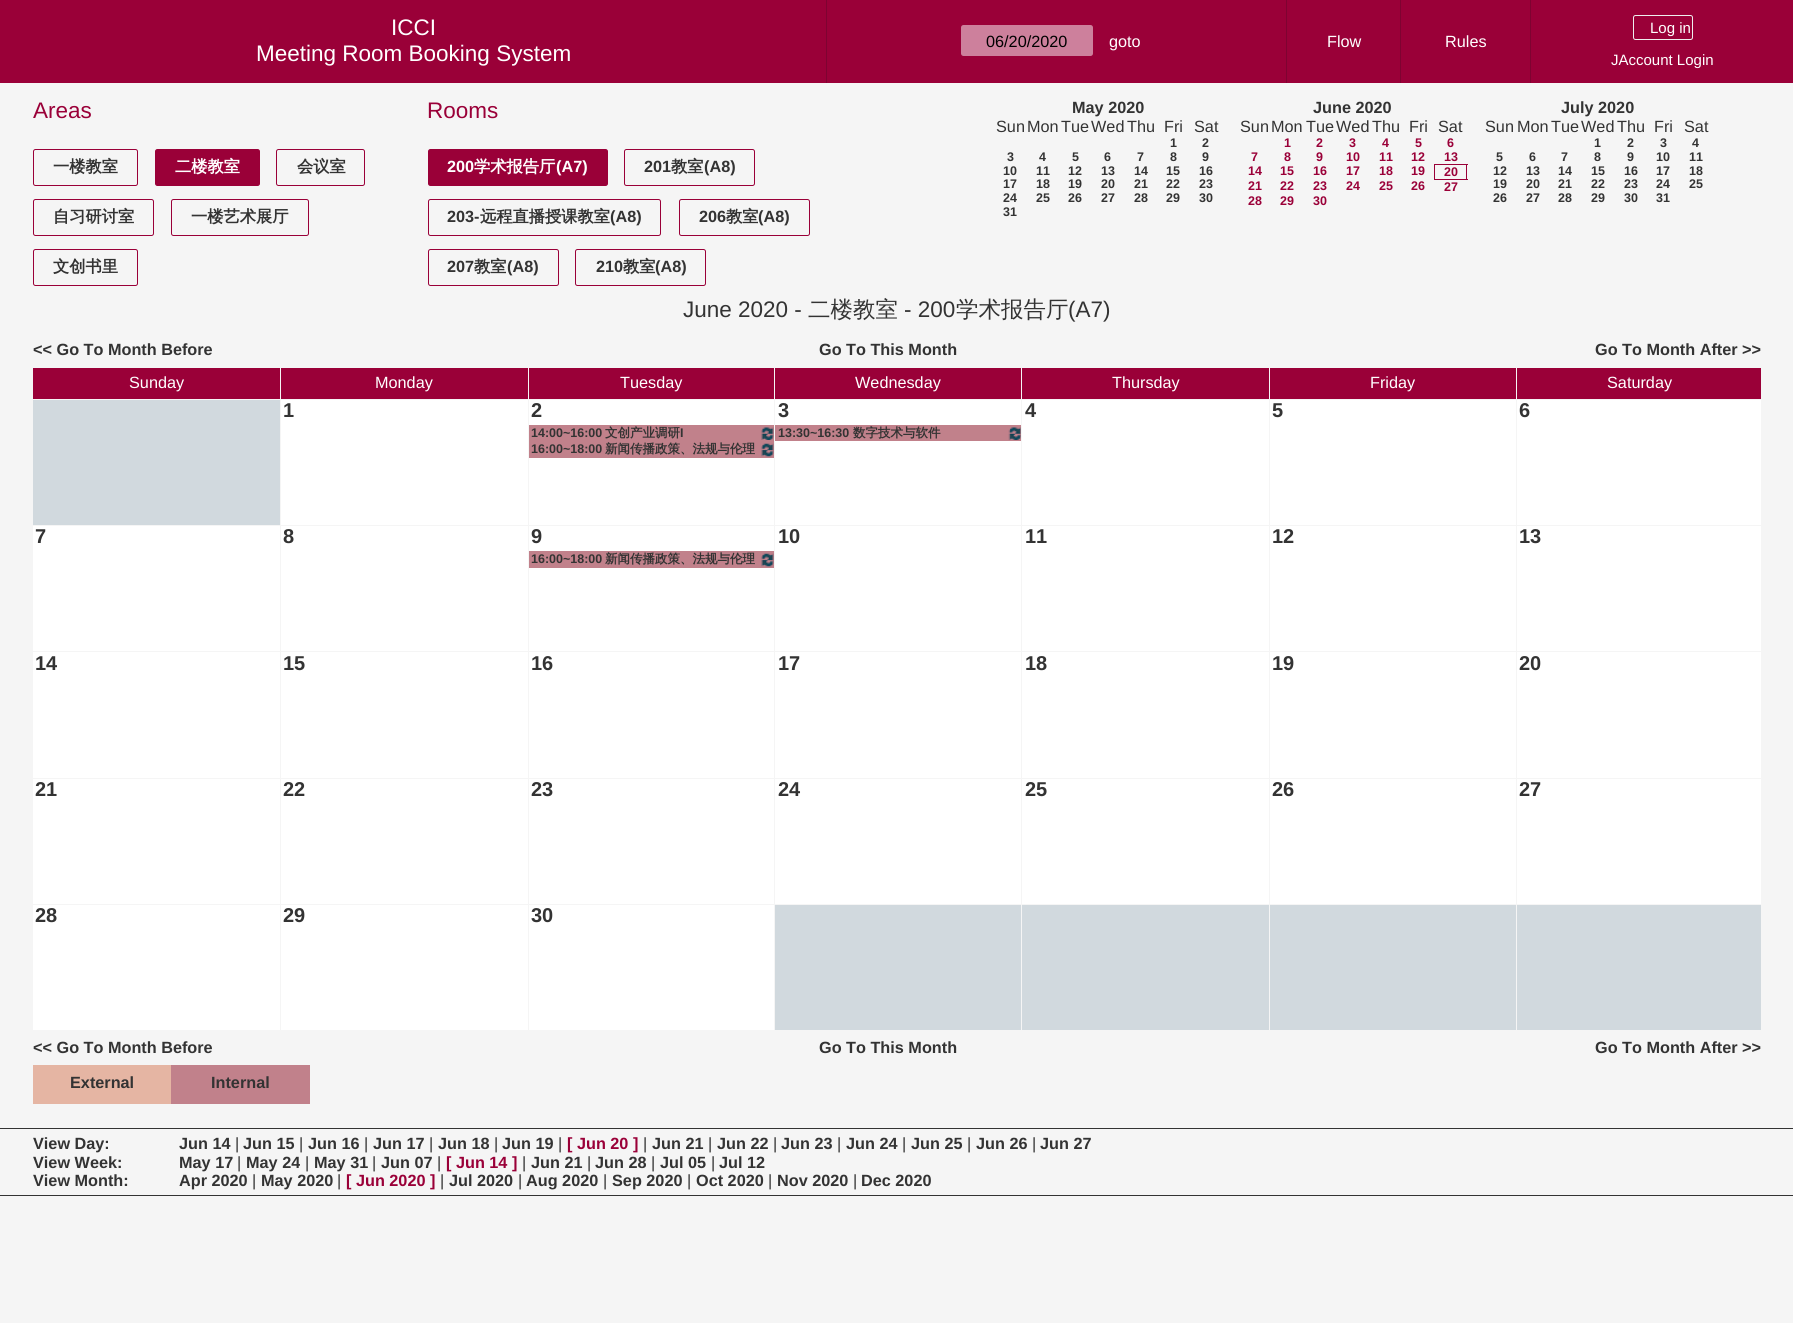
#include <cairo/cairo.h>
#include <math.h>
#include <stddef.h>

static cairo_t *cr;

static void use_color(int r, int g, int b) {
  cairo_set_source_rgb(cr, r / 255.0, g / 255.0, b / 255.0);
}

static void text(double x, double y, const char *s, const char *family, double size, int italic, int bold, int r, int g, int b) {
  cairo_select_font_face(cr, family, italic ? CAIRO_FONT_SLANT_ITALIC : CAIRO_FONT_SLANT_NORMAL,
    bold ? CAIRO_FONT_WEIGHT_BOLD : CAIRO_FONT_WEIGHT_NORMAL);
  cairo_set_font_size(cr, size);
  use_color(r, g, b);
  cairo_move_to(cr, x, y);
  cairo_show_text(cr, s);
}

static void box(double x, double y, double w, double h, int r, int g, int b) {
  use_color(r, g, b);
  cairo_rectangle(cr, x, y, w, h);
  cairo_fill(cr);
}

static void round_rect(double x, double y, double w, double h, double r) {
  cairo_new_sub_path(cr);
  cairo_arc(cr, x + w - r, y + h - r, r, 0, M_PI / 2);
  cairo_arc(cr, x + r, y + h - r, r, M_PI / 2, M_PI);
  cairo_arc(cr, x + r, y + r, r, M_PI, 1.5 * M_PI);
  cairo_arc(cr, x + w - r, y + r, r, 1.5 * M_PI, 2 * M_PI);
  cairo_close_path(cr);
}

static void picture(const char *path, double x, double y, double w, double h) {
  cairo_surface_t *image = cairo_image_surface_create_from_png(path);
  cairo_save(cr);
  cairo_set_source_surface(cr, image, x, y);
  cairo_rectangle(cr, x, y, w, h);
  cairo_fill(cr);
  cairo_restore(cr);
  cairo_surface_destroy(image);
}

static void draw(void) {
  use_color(245, 245, 245);
  cairo_paint(cr);
  box(0, 0, 1793, 83, 154, 0, 56);
  box(826, 0, 1, 83, 126, 3, 49);
  use_color(205, 128, 156);
  round_rect(961, 25, 132, 31, 2.5);
  cairo_fill(cr);
  box(1286, 0, 1, 83, 126, 3, 49);
  box(1400, 0, 1, 83, 126, 3, 49);
  box(1530, 0, 1, 83, 126, 3, 49);
  round_rect(1633.5, 15.5, 59, 24, 2);
  use_color(238, 238, 238);
  cairo_set_line_width(cr, 1);
  cairo_stroke(cr);
  round_rect(33.5, 149.5, 104, 36, 2);
  use_color(154, 0, 56);
  cairo_stroke(cr);
  round_rect(155.5, 149.5, 104, 36, 2);
  cairo_fill_preserve(cr);
  cairo_stroke(cr);
  round_rect(276.5, 149.5, 88, 36, 2);
  cairo_stroke(cr);
  round_rect(33.5, 199.5, 120, 36, 2);
  cairo_stroke(cr);
  round_rect(171.5, 199.5, 137, 36, 2);
  cairo_stroke(cr);
  round_rect(33.5, 249.5, 104, 36, 2);
  cairo_stroke(cr);
  round_rect(428.5, 149.5, 179, 36, 2);
  cairo_fill_preserve(cr);
  cairo_stroke(cr);
  round_rect(624.5, 149.5, 130, 36, 2);
  cairo_stroke(cr);
  round_rect(428.5, 199.5, 232, 36, 2);
  cairo_stroke(cr);
  round_rect(679.5, 199.5, 130, 36, 2);
  cairo_stroke(cr);
  round_rect(428.5, 249.5, 130, 36, 2);
  cairo_stroke(cr);
  round_rect(575.5, 249.5, 130, 36, 2);
  cairo_stroke(cr);
  box(1434, 164, 34, 1, 154, 0, 56);
  box(1466, 164, 1, 16, 154, 0, 56);
  box(1434, 179, 34, 1, 154, 0, 56);
  box(1434, 164, 1, 16, 154, 0, 56);
  box(33, 368, 247, 31, 154, 0, 56);
  box(281, 368, 247, 31, 154, 0, 56);
  box(529, 368, 245, 31, 154, 0, 56);
  box(775, 368, 246, 31, 154, 0, 56);
  box(1022, 368, 247, 31, 154, 0, 56);
  box(1270, 368, 246, 31, 154, 0, 56);
  box(1517, 368, 244, 31, 154, 0, 56);
  box(33, 400, 247, 125, 209, 217, 222);
  box(281, 400, 247, 125, 255, 255, 255);
  box(529, 400, 245, 125, 255, 255, 255);
  box(529, 425, 245, 33, 193, 129, 139);
  picture("img_01.png", 761, 427, 13, 13);
  picture("img_02.png", 761, 443, 13, 14);
  box(775, 400, 246, 125, 255, 255, 255);
  box(775, 425, 246, 16, 193, 129, 139);
  picture("img_03.png", 1008, 427, 13, 13);
  box(1022, 400, 247, 125, 255, 255, 255);
  box(1270, 400, 246, 125, 255, 255, 255);
  box(1517, 400, 244, 125, 255, 255, 255);
  box(33, 526, 247, 125, 255, 255, 255);
  box(281, 526, 247, 125, 255, 255, 255);
  box(529, 526, 245, 125, 255, 255, 255);
  box(529, 551, 245, 17, 193, 129, 139);
  picture("img_02.png", 761, 553, 13, 14);
  box(775, 526, 246, 125, 255, 255, 255);
  box(1022, 526, 247, 125, 255, 255, 255);
  box(1270, 526, 246, 125, 255, 255, 255);
  box(1517, 526, 244, 125, 255, 255, 255);
  box(33, 652, 247, 126, 255, 255, 255);
  box(281, 652, 247, 126, 255, 255, 255);
  box(529, 652, 245, 126, 255, 255, 255);
  box(775, 652, 246, 126, 255, 255, 255);
  box(1022, 652, 247, 126, 255, 255, 255);
  box(1270, 652, 246, 126, 255, 255, 255);
  box(1517, 652, 244, 126, 255, 255, 255);
  box(33, 779, 247, 125, 255, 255, 255);
  box(281, 779, 247, 125, 255, 255, 255);
  box(529, 779, 245, 125, 255, 255, 255);
  box(775, 779, 246, 125, 255, 255, 255);
  box(1022, 779, 247, 125, 255, 255, 255);
  box(1270, 779, 246, 125, 255, 255, 255);
  box(1517, 779, 244, 125, 255, 255, 255);
  box(33, 905, 247, 125, 255, 255, 255);
  box(281, 905, 247, 125, 255, 255, 255);
  box(529, 905, 245, 125, 255, 255, 255);
  box(775, 905, 246, 125, 209, 217, 222);
  box(1022, 905, 247, 125, 209, 217, 222);
  box(1270, 905, 246, 125, 209, 217, 222);
  box(1517, 905, 244, 125, 209, 217, 222);
  box(33, 1065, 138, 39, 229, 181, 163);
  box(171, 1065, 139, 39, 193, 129, 139);
  box(0, 1128, 1793, 1, 51, 51, 51);
  box(0, 1195, 1793, 1, 51, 51, 51);
  text(391, 35, "ICCI", "Liberation Sans", 22.5, 0, 0, 255, 255, 255);
  text(256, 61, "Meeting Room Booking System", "Liberation Sans", 22.5, 0, 0, 255, 255, 255);
  text(986, 47, "06/20/2020", "Liberation Sans", 16.25, 0, 0, 0, 0, 0);
  text(1109, 47, "goto", "Liberation Sans", 16.25, 0, 0, 255, 255, 255);
  text(1327, 47, "Flow", "Liberation Sans", 16.25, 0, 0, 255, 255, 255);
  text(1445, 47, "Rules", "Liberation Sans", 16.25, 0, 0, 255, 255, 255);
  text(1650, 33, "Log in", "Liberation Sans", 15, 0, 0, 255, 255, 255);
  text(1611, 65, "JAccount Login", "Liberation Sans", 15, 0, 0, 255, 255, 255);
  text(33, 118, "Areas", "Liberation Sans", 22.5, 0, 0, 154, 0, 56);
  text(53, 172, "一楼教室", "WenQuanYi Zen Hei", 16.25, 0, 1, 51, 51, 51);
  text(175, 172, "二楼教室", "WenQuanYi Zen Hei", 16.25, 0, 1, 255, 255, 255);
  text(297, 172, "会议室", "WenQuanYi Zen Hei", 16.25, 0, 1, 51, 51, 51);
  text(53, 222, "自习研讨室", "WenQuanYi Zen Hei", 16.25, 0, 1, 51, 51, 51);
  text(191, 222, "一楼艺术展厅", "WenQuanYi Zen Hei", 16.25, 0, 1, 51, 51, 51);
  text(53, 272, "文创书里", "WenQuanYi Zen Hei", 16.25, 0, 1, 51, 51, 51);
  text(427, 118, "Rooms", "Liberation Sans", 22.5, 0, 0, 154, 0, 56);
  text(447, 172, "200", "Liberation Sans", 16.25, 0, 1, 255, 255, 255);
  text(474, 172, "学术报告厅", "WenQuanYi Zen Hei", 16.25, 0, 1, 255, 255, 255);
  text(556, 172, "(A7)", "Liberation Sans", 16.25, 0, 1, 255, 255, 255);
  text(644, 172, "201", "Liberation Sans", 16.25, 0, 1, 51, 51, 51);
  text(671, 172, "教室", "WenQuanYi Zen Hei", 16.25, 0, 1, 51, 51, 51);
  text(704, 172, "(A8)", "Liberation Sans", 16.25, 0, 1, 51, 51, 51);
  text(447, 222, "203-", "Liberation Sans", 16.25, 0, 1, 51, 51, 51);
  text(480, 222, "远程直播授课教室", "WenQuanYi Zen Hei", 16.25, 0, 1, 51, 51, 51);
  text(610, 222, "(A8)", "Liberation Sans", 16.25, 0, 1, 51, 51, 51);
  text(699, 222, "206", "Liberation Sans", 16.25, 0, 1, 51, 51, 51);
  text(726, 222, "教室", "WenQuanYi Zen Hei", 16.25, 0, 1, 51, 51, 51);
  text(758, 222, "(A8)", "Liberation Sans", 16.25, 0, 1, 51, 51, 51);
  text(447, 272, "207", "Liberation Sans", 16.25, 0, 1, 51, 51, 51);
  text(474, 272, "教室", "WenQuanYi Zen Hei", 16.25, 0, 1, 51, 51, 51);
  text(507, 272, "(A8)", "Liberation Sans", 16.25, 0, 1, 51, 51, 51);
  text(596, 272, "210", "Liberation Sans", 16.25, 0, 1, 51, 51, 51);
  text(623, 272, "教室", "WenQuanYi Zen Hei", 16.25, 0, 1, 51, 51, 51);
  text(655, 272, "(A8)", "Liberation Sans", 16.25, 0, 1, 51, 51, 51);
  text(1072, 113, "May 2020", "Liberation Sans", 16.25, 0, 1, 51, 51, 51);
  text(996, 132, "Sun", "Liberation Sans", 16.25, 0, 0, 51, 51, 51);
  text(1027, 132, "Mon", "Liberation Sans", 16.25, 0, 0, 51, 51, 51);
  text(1061, 132, "Tue", "Liberation Sans", 16.25, 0, 0, 51, 51, 51);
  text(1091, 132, "Wed", "Liberation Sans", 16.25, 0, 0, 51, 51, 51);
  text(1127, 132, "Thu", "Liberation Sans", 16.25, 0, 0, 51, 51, 51);
  text(1164, 132, "Fri", "Liberation Sans", 16.25, 0, 0, 51, 51, 51);
  text(1194, 132, "Sat", "Liberation Sans", 16.25, 0, 0, 51, 51, 51);
  text(1170, 147, "1", "Liberation Sans", 12.5, 0, 1, 51, 51, 51);
  text(1202, 147, "2", "Liberation Sans", 12.5, 0, 1, 51, 51, 51);
  text(1007, 161, "3", "Liberation Sans", 12.5, 0, 1, 51, 51, 51);
  text(1039, 161, "4", "Liberation Sans", 12.5, 0, 1, 51, 51, 51);
  text(1072, 161, "5", "Liberation Sans", 12.5, 0, 1, 51, 51, 51);
  text(1104, 161, "6", "Liberation Sans", 12.5, 0, 1, 51, 51, 51);
  text(1137, 161, "7", "Liberation Sans", 12.5, 0, 1, 51, 51, 51);
  text(1170, 161, "8", "Liberation Sans", 12.5, 0, 1, 51, 51, 51);
  text(1202, 161, "9", "Liberation Sans", 12.5, 0, 1, 51, 51, 51);
  text(1003, 175, "10", "Liberation Sans", 12.5, 0, 1, 51, 51, 51);
  text(1036, 175, "11", "Liberation Sans", 12.5, 0, 1, 51, 51, 51);
  text(1068, 175, "12", "Liberation Sans", 12.5, 0, 1, 51, 51, 51);
  text(1101, 175, "13", "Liberation Sans", 12.5, 0, 1, 51, 51, 51);
  text(1134, 175, "14", "Liberation Sans", 12.5, 0, 1, 51, 51, 51);
  text(1166, 175, "15", "Liberation Sans", 12.5, 0, 1, 51, 51, 51);
  text(1199, 175, "16", "Liberation Sans", 12.5, 0, 1, 51, 51, 51);
  text(1003, 188, "17", "Liberation Sans", 12.5, 0, 1, 51, 51, 51);
  text(1036, 188, "18", "Liberation Sans", 12.5, 0, 1, 51, 51, 51);
  text(1068, 188, "19", "Liberation Sans", 12.5, 0, 1, 51, 51, 51);
  text(1101, 188, "20", "Liberation Sans", 12.5, 0, 1, 51, 51, 51);
  text(1134, 188, "21", "Liberation Sans", 12.5, 0, 1, 51, 51, 51);
  text(1166, 188, "22", "Liberation Sans", 12.5, 0, 1, 51, 51, 51);
  text(1199, 188, "23", "Liberation Sans", 12.5, 0, 1, 51, 51, 51);
  text(1003, 202, "24", "Liberation Sans", 12.5, 0, 1, 51, 51, 51);
  text(1036, 202, "25", "Liberation Sans", 12.5, 0, 1, 51, 51, 51);
  text(1068, 202, "26", "Liberation Sans", 12.5, 0, 1, 51, 51, 51);
  text(1101, 202, "27", "Liberation Sans", 12.5, 0, 1, 51, 51, 51);
  text(1134, 202, "28", "Liberation Sans", 12.5, 0, 1, 51, 51, 51);
  text(1166, 202, "29", "Liberation Sans", 12.5, 0, 1, 51, 51, 51);
  text(1199, 202, "30", "Liberation Sans", 12.5, 0, 1, 51, 51, 51);
  text(1003, 216, "31", "Liberation Sans", 12.5, 0, 1, 51, 51, 51);
  text(1313, 113, "June 2020", "Liberation Sans", 16.25, 0, 1, 51, 51, 51);
  text(1240, 132, "Sun", "Liberation Sans", 16.25, 0, 0, 51, 51, 51);
  text(1271, 132, "Mon", "Liberation Sans", 16.25, 0, 0, 51, 51, 51);
  text(1306, 132, "Tue", "Liberation Sans", 16.25, 0, 0, 51, 51, 51);
  text(1336, 132, "Wed", "Liberation Sans", 16.25, 0, 0, 51, 51, 51);
  text(1372, 132, "Thu", "Liberation Sans", 16.25, 0, 0, 51, 51, 51);
  text(1409, 132, "Fri", "Liberation Sans", 16.25, 0, 0, 51, 51, 51);
  text(1438, 132, "Sat", "Liberation Sans", 16.25, 0, 0, 51, 51, 51);
  text(1284, 147, "1", "Liberation Sans", 12.5, 0, 1, 154, 0, 56);
  text(1316, 147, "2", "Liberation Sans", 12.5, 0, 1, 154, 0, 56);
  text(1349, 147, "3", "Liberation Sans", 12.5, 0, 1, 154, 0, 56);
  text(1382, 147, "4", "Liberation Sans", 12.5, 0, 1, 154, 0, 56);
  text(1415, 147, "5", "Liberation Sans", 12.5, 0, 1, 154, 0, 56);
  text(1447, 147, "6", "Liberation Sans", 12.5, 0, 1, 154, 0, 56);
  text(1251, 161, "7", "Liberation Sans", 12.5, 0, 1, 154, 0, 56);
  text(1284, 161, "8", "Liberation Sans", 12.5, 0, 1, 154, 0, 56);
  text(1316, 161, "9", "Liberation Sans", 12.5, 0, 1, 154, 0, 56);
  text(1346, 161, "10", "Liberation Sans", 12.5, 0, 1, 154, 0, 56);
  text(1379, 161, "11", "Liberation Sans", 12.5, 0, 1, 154, 0, 56);
  text(1411, 161, "12", "Liberation Sans", 12.5, 0, 1, 154, 0, 56);
  text(1444, 161, "13", "Liberation Sans", 12.5, 0, 1, 154, 0, 56);
  text(1248, 175, "14", "Liberation Sans", 12.5, 0, 1, 154, 0, 56);
  text(1280, 175, "15", "Liberation Sans", 12.5, 0, 1, 154, 0, 56);
  text(1313, 175, "16", "Liberation Sans", 12.5, 0, 1, 154, 0, 56);
  text(1346, 175, "17", "Liberation Sans", 12.5, 0, 1, 154, 0, 56);
  text(1379, 175, "18", "Liberation Sans", 12.5, 0, 1, 154, 0, 56);
  text(1411, 175, "19", "Liberation Sans", 12.5, 0, 1, 154, 0, 56);
  text(1444, 176, "20", "Liberation Sans", 12.5, 0, 1, 154, 0, 56);
  text(1248, 190, "21", "Liberation Sans", 12.5, 0, 1, 154, 0, 56);
  text(1280, 190, "22", "Liberation Sans", 12.5, 0, 1, 154, 0, 56);
  text(1313, 190, "23", "Liberation Sans", 12.5, 0, 1, 154, 0, 56);
  text(1346, 190, "24", "Liberation Sans", 12.5, 0, 1, 154, 0, 56);
  text(1379, 190, "25", "Liberation Sans", 12.5, 0, 1, 154, 0, 56);
  text(1411, 190, "26", "Liberation Sans", 12.5, 0, 1, 154, 0, 56);
  text(1444, 191, "27", "Liberation Sans", 12.5, 0, 1, 154, 0, 56);
  text(1248, 205, "28", "Liberation Sans", 12.5, 0, 1, 154, 0, 56);
  text(1280, 205, "29", "Liberation Sans", 12.5, 0, 1, 154, 0, 56);
  text(1313, 205, "30", "Liberation Sans", 12.5, 0, 1, 154, 0, 56);
  text(1561, 113, "July 2020", "Liberation Sans", 16.25, 0, 1, 51, 51, 51);
  text(1485, 132, "Sun", "Liberation Sans", 16.25, 0, 0, 51, 51, 51);
  text(1517, 132, "Mon", "Liberation Sans", 16.25, 0, 0, 51, 51, 51);
  text(1551, 132, "Tue", "Liberation Sans", 16.25, 0, 0, 51, 51, 51);
  text(1581, 132, "Wed", "Liberation Sans", 16.25, 0, 0, 51, 51, 51);
  text(1617, 132, "Thu", "Liberation Sans", 16.25, 0, 0, 51, 51, 51);
  text(1654, 132, "Fri", "Liberation Sans", 16.25, 0, 0, 51, 51, 51);
  text(1684, 132, "Sat", "Liberation Sans", 16.25, 0, 0, 51, 51, 51);
  text(1594, 147, "1", "Liberation Sans", 12.5, 0, 1, 51, 51, 51);
  text(1627, 147, "2", "Liberation Sans", 12.5, 0, 1, 51, 51, 51);
  text(1660, 147, "3", "Liberation Sans", 12.5, 0, 1, 51, 51, 51);
  text(1692, 147, "4", "Liberation Sans", 12.5, 0, 1, 51, 51, 51);
  text(1496, 161, "5", "Liberation Sans", 12.5, 0, 1, 51, 51, 51);
  text(1529, 161, "6", "Liberation Sans", 12.5, 0, 1, 51, 51, 51);
  text(1561, 161, "7", "Liberation Sans", 12.5, 0, 1, 51, 51, 51);
  text(1594, 161, "8", "Liberation Sans", 12.5, 0, 1, 51, 51, 51);
  text(1627, 161, "9", "Liberation Sans", 12.5, 0, 1, 51, 51, 51);
  text(1656, 161, "10", "Liberation Sans", 12.5, 0, 1, 51, 51, 51);
  text(1689, 161, "11", "Liberation Sans", 12.5, 0, 1, 51, 51, 51);
  text(1493, 175, "12", "Liberation Sans", 12.5, 0, 1, 51, 51, 51);
  text(1526, 175, "13", "Liberation Sans", 12.5, 0, 1, 51, 51, 51);
  text(1558, 175, "14", "Liberation Sans", 12.5, 0, 1, 51, 51, 51);
  text(1591, 175, "15", "Liberation Sans", 12.5, 0, 1, 51, 51, 51);
  text(1624, 175, "16", "Liberation Sans", 12.5, 0, 1, 51, 51, 51);
  text(1656, 175, "17", "Liberation Sans", 12.5, 0, 1, 51, 51, 51);
  text(1689, 175, "18", "Liberation Sans", 12.5, 0, 1, 51, 51, 51);
  text(1493, 188, "19", "Liberation Sans", 12.5, 0, 1, 51, 51, 51);
  text(1526, 188, "20", "Liberation Sans", 12.5, 0, 1, 51, 51, 51);
  text(1558, 188, "21", "Liberation Sans", 12.5, 0, 1, 51, 51, 51);
  text(1591, 188, "22", "Liberation Sans", 12.5, 0, 1, 51, 51, 51);
  text(1624, 188, "23", "Liberation Sans", 12.5, 0, 1, 51, 51, 51);
  text(1656, 188, "24", "Liberation Sans", 12.5, 0, 1, 51, 51, 51);
  text(1689, 188, "25", "Liberation Sans", 12.5, 0, 1, 51, 51, 51);
  text(1493, 202, "26", "Liberation Sans", 12.5, 0, 1, 51, 51, 51);
  text(1526, 202, "27", "Liberation Sans", 12.5, 0, 1, 51, 51, 51);
  text(1558, 202, "28", "Liberation Sans", 12.5, 0, 1, 51, 51, 51);
  text(1591, 202, "29", "Liberation Sans", 12.5, 0, 1, 51, 51, 51);
  text(1624, 202, "30", "Liberation Sans", 12.5, 0, 1, 51, 51, 51);
  text(1656, 202, "31", "Liberation Sans", 12.5, 0, 1, 51, 51, 51);
  text(683, 317, "June 2020 -", "Liberation Sans", 22.5, 0, 0, 51, 51, 51);
  text(808, 317, "二楼教室", "WenQuanYi Zen Hei Medium", 22.5, 0, 0, 51, 51, 51);
  text(904, 317, "- 200", "Liberation Sans", 22.5, 0, 0, 51, 51, 51);
  text(956, 317, "学术报告厅", "WenQuanYi Zen Hei Medium", 22.5, 0, 0, 51, 51, 51);
  text(1068, 317, "(A7)", "Liberation Sans", 22.5, 0, 0, 51, 51, 51);
  text(33, 355, "<< Go To Month Before", "Liberation Sans", 16.25, 0, 1, 51, 51, 51);
  text(819, 355, "Go To This Month", "Liberation Sans", 16.25, 0, 1, 51, 51, 51);
  text(1595, 355, "Go To Month After >>", "Liberation Sans", 16.25, 0, 1, 51, 51, 51);
  text(129, 388, "Sunday", "Liberation Sans", 16.25, 0, 0, 255, 255, 255);
  text(375, 388, "Monday", "Liberation Sans", 16.25, 0, 0, 255, 255, 255);
  text(620, 388, "Tuesday", "Liberation Sans", 16.25, 0, 0, 255, 255, 255);
  text(855, 388, "Wednesday", "Liberation Sans", 16.25, 0, 0, 255, 255, 255);
  text(1112, 388, "Thursday", "Liberation Sans", 16.25, 0, 0, 255, 255, 255);
  text(1370, 388, "Friday", "Liberation Sans", 16.25, 0, 0, 255, 255, 255);
  text(1607, 388, "Saturday", "Liberation Sans", 16.25, 0, 0, 255, 255, 255);
  text(283, 417, "1", "Liberation Sans", 20, 0, 1, 51, 51, 51);
  text(531, 417, "2", "Liberation Sans", 20, 0, 1, 51, 51, 51);
  text(531, 437, "14:00~16:00", "Liberation Sans", 12.5, 0, 1, 51, 51, 51);
  text(605, 437, "文创产业调研", "WenQuanYi Zen Hei", 12.5, 0, 1, 51, 51, 51);
  text(680, 437, "I", "Liberation Sans", 12.5, 0, 1, 51, 51, 51);
  text(531, 453, "16:00~18:00", "Liberation Sans", 12.5, 0, 1, 51, 51, 51);
  text(605, 453, "新闻传播政策、法规与伦理", "WenQuanYi Zen Hei", 12.5, 0, 1, 51, 51, 51);
  text(778, 417, "3", "Liberation Sans", 20, 0, 1, 51, 51, 51);
  text(778, 437, "13:30~16:30", "Liberation Sans", 12.5, 0, 1, 51, 51, 51);
  text(853, 437, "数字技术与软件", "WenQuanYi Zen Hei", 12.5, 0, 1, 51, 51, 51);
  text(1025, 417, "4", "Liberation Sans", 20, 0, 1, 51, 51, 51);
  text(1272, 417, "5", "Liberation Sans", 20, 0, 1, 51, 51, 51);
  text(1519, 417, "6", "Liberation Sans", 20, 0, 1, 51, 51, 51);
  text(35, 543, "7", "Liberation Sans", 20, 0, 1, 51, 51, 51);
  text(283, 543, "8", "Liberation Sans", 20, 0, 1, 51, 51, 51);
  text(531, 543, "9", "Liberation Sans", 20, 0, 1, 51, 51, 51);
  text(531, 563, "16:00~18:00", "Liberation Sans", 12.5, 0, 1, 51, 51, 51);
  text(605, 563, "新闻传播政策、法规与伦理", "WenQuanYi Zen Hei", 12.5, 0, 1, 51, 51, 51);
  text(778, 543, "10", "Liberation Sans", 20, 0, 1, 51, 51, 51);
  text(1025, 543, "11", "Liberation Sans", 20, 0, 1, 51, 51, 51);
  text(1272, 543, "12", "Liberation Sans", 20, 0, 1, 51, 51, 51);
  text(1519, 543, "13", "Liberation Sans", 20, 0, 1, 51, 51, 51);
  text(35, 670, "14", "Liberation Sans", 20, 0, 1, 51, 51, 51);
  text(283, 670, "15", "Liberation Sans", 20, 0, 1, 51, 51, 51);
  text(531, 670, "16", "Liberation Sans", 20, 0, 1, 51, 51, 51);
  text(778, 670, "17", "Liberation Sans", 20, 0, 1, 51, 51, 51);
  text(1025, 670, "18", "Liberation Sans", 20, 0, 1, 51, 51, 51);
  text(1272, 670, "19", "Liberation Sans", 20, 0, 1, 51, 51, 51);
  text(1519, 670, "20", "Liberation Sans", 20, 0, 1, 51, 51, 51);
  text(35, 796, "21", "Liberation Sans", 20, 0, 1, 51, 51, 51);
  text(283, 796, "22", "Liberation Sans", 20, 0, 1, 51, 51, 51);
  text(531, 796, "23", "Liberation Sans", 20, 0, 1, 51, 51, 51);
  text(778, 796, "24", "Liberation Sans", 20, 0, 1, 51, 51, 51);
  text(1025, 796, "25", "Liberation Sans", 20, 0, 1, 51, 51, 51);
  text(1272, 796, "26", "Liberation Sans", 20, 0, 1, 51, 51, 51);
  text(1519, 796, "27", "Liberation Sans", 20, 0, 1, 51, 51, 51);
  text(35, 922, "28", "Liberation Sans", 20, 0, 1, 51, 51, 51);
  text(283, 922, "29", "Liberation Sans", 20, 0, 1, 51, 51, 51);
  text(531, 922, "30", "Liberation Sans", 20, 0, 1, 51, 51, 51);
  text(33, 1053, "<< Go To Month Before", "Liberation Sans", 16.25, 0, 1, 51, 51, 51);
  text(819, 1053, "Go To This Month", "Liberation Sans", 16.25, 0, 1, 51, 51, 51);
  text(1595, 1053, "Go To Month After >>", "Liberation Sans", 16.25, 0, 1, 51, 51, 51);
  text(70, 1088, "External", "Liberation Sans", 16.25, 0, 1, 51, 51, 51);
  text(211, 1088, "Internal", "Liberation Sans", 16.25, 0, 1, 51, 51, 51);
  text(33, 1149, "View Day:", "Liberation Sans", 16.25, 0, 1, 51, 51, 51);
  text(179, 1149, "Jun 14", "Liberation Sans", 16.25, 0, 1, 51, 51, 51);
  text(235, 1149, "|", "Liberation Sans", 16.25, 0, 0, 51, 51, 51);
  text(243, 1149, "Jun 15", "Liberation Sans", 16.25, 0, 1, 51, 51, 51);
  text(299, 1149, "|", "Liberation Sans", 16.25, 0, 0, 51, 51, 51);
  text(308, 1149, "Jun 16", "Liberation Sans", 16.25, 0, 1, 51, 51, 51);
  text(364, 1149, "|", "Liberation Sans", 16.25, 0, 0, 51, 51, 51);
  text(373, 1149, "Jun 17", "Liberation Sans", 16.25, 0, 1, 51, 51, 51);
  text(429, 1149, "|", "Liberation Sans", 16.25, 0, 0, 51, 51, 51);
  text(438, 1149, "Jun 18", "Liberation Sans", 16.25, 0, 1, 51, 51, 51);
  text(494, 1149, "|", "Liberation Sans", 16.25, 0, 0, 51, 51, 51);
  text(502, 1149, "Jun 19", "Liberation Sans", 16.25, 0, 1, 51, 51, 51);
  text(558, 1149, "|", "Liberation Sans", 16.25, 0, 0, 51, 51, 51);
  text(567, 1149, "[ Jun 20 ]", "Liberation Sans", 16.25, 0, 1, 154, 0, 56);
  text(643, 1149, "|", "Liberation Sans", 16.25, 0, 0, 51, 51, 51);
  text(652, 1149, "Jun 21", "Liberation Sans", 16.25, 0, 1, 51, 51, 51);
  text(708, 1149, "|", "Liberation Sans", 16.25, 0, 0, 51, 51, 51);
  text(717, 1149, "Jun 22", "Liberation Sans", 16.25, 0, 1, 51, 51, 51);
  text(773, 1149, "|", "Liberation Sans", 16.25, 0, 0, 51, 51, 51);
  text(781, 1149, "Jun 23", "Liberation Sans", 16.25, 0, 1, 51, 51, 51);
  text(837, 1149, "|", "Liberation Sans", 16.25, 0, 0, 51, 51, 51);
  text(846, 1149, "Jun 24", "Liberation Sans", 16.25, 0, 1, 51, 51, 51);
  text(902, 1149, "|", "Liberation Sans", 16.25, 0, 0, 51, 51, 51);
  text(911, 1149, "Jun 25", "Liberation Sans", 16.25, 0, 1, 51, 51, 51);
  text(967, 1149, "|", "Liberation Sans", 16.25, 0, 0, 51, 51, 51);
  text(976, 1149, "Jun 26", "Liberation Sans", 16.25, 0, 1, 51, 51, 51);
  text(1032, 1149, "|", "Liberation Sans", 16.25, 0, 0, 51, 51, 51);
  text(1040, 1149, "Jun 27", "Liberation Sans", 16.25, 0, 1, 51, 51, 51);
  text(33, 1168, "View Week:", "Liberation Sans", 16.25, 0, 1, 51, 51, 51);
  text(179, 1168, "May 17", "Liberation Sans", 16.25, 0, 1, 51, 51, 51);
  text(237, 1168, "|", "Liberation Sans", 16.25, 0, 0, 51, 51, 51);
  text(246, 1168, "May 24", "Liberation Sans", 16.25, 0, 1, 51, 51, 51);
  text(305, 1168, "|", "Liberation Sans", 16.25, 0, 0, 51, 51, 51);
  text(314, 1168, "May 31", "Liberation Sans", 16.25, 0, 1, 51, 51, 51);
  text(372, 1168, "|", "Liberation Sans", 16.25, 0, 0, 51, 51, 51);
  text(381, 1168, "Jun 07", "Liberation Sans", 16.25, 0, 1, 51, 51, 51);
  text(437, 1168, "|", "Liberation Sans", 16.25, 0, 0, 51, 51, 51);
  text(446, 1168, "[ Jun 14 ]", "Liberation Sans", 16.25, 0, 1, 154, 0, 56);
  text(522, 1168, "|", "Liberation Sans", 16.25, 0, 0, 51, 51, 51);
  text(531, 1168, "Jun 21", "Liberation Sans", 16.25, 0, 1, 51, 51, 51);
  text(587, 1168, "|", "Liberation Sans", 16.25, 0, 0, 51, 51, 51);
  text(595, 1168, "Jun 28", "Liberation Sans", 16.25, 0, 1, 51, 51, 51);
  text(651, 1168, "|", "Liberation Sans", 16.25, 0, 0, 51, 51, 51);
  text(660, 1168, "Jul 05", "Liberation Sans", 16.25, 0, 1, 51, 51, 51);
  text(711, 1168, "|", "Liberation Sans", 16.25, 0, 0, 51, 51, 51);
  text(719, 1168, "Jul 12", "Liberation Sans", 16.25, 0, 1, 51, 51, 51);
  text(33, 1186, "View Month:", "Liberation Sans", 16.25, 0, 1, 51, 51, 51);
  text(179, 1186, "Apr 2020", "Liberation Sans", 16.25, 0, 1, 51, 51, 51);
  text(252, 1186, "|", "Liberation Sans", 16.25, 0, 0, 51, 51, 51);
  text(261, 1186, "May 2020", "Liberation Sans", 16.25, 0, 1, 51, 51, 51);
  text(337, 1186, "|", "Liberation Sans", 16.25, 0, 0, 51, 51, 51);
  text(346, 1186, "[ Jun 2020 ]", "Liberation Sans", 16.25, 0, 1, 154, 0, 56);
  text(440, 1186, "|", "Liberation Sans", 16.25, 0, 0, 51, 51, 51);
  text(449, 1186, "Jul 2020", "Liberation Sans", 16.25, 0, 1, 51, 51, 51);
  text(518, 1186, "|", "Liberation Sans", 16.25, 0, 0, 51, 51, 51);
  text(526, 1186, "Aug 2020", "Liberation Sans", 16.25, 0, 1, 51, 51, 51);
  text(603, 1186, "|", "Liberation Sans", 16.25, 0, 0, 51, 51, 51);
  text(612, 1186, "Sep 2020", "Liberation Sans", 16.25, 0, 1, 51, 51, 51);
  text(687, 1186, "|", "Liberation Sans", 16.25, 0, 0, 51, 51, 51);
  text(696, 1186, "Oct 2020", "Liberation Sans", 16.25, 0, 1, 51, 51, 51);
  text(768, 1186, "|", "Liberation Sans", 16.25, 0, 0, 51, 51, 51);
  text(777, 1186, "Nov 2020", "Liberation Sans", 16.25, 0, 1, 51, 51, 51);
  text(853, 1186, "|", "Liberation Sans", 16.25, 0, 0, 51, 51, 51);
  text(861, 1186, "Dec 2020", "Liberation Sans", 16.25, 0, 1, 51, 51, 51);
}

int main(void) {
  cairo_surface_t *surface = cairo_image_surface_create(CAIRO_FORMAT_RGB24, 1793, 1323);
  cr = cairo_create(surface);
  cairo_font_options_t *options = cairo_font_options_create();
  cairo_font_options_set_hint_metrics(options, CAIRO_HINT_METRICS_OFF);
  cairo_font_options_set_hint_style(options, CAIRO_HINT_STYLE_NONE);
  cairo_set_font_options(cr, options);
  cairo_set_miter_limit(cr, 4);
  draw();
  cairo_surface_write_to_png(surface, "out.png");
  cairo_font_options_destroy(options);
  cairo_destroy(cr);
  cairo_surface_destroy(surface);
  return 0;
}
